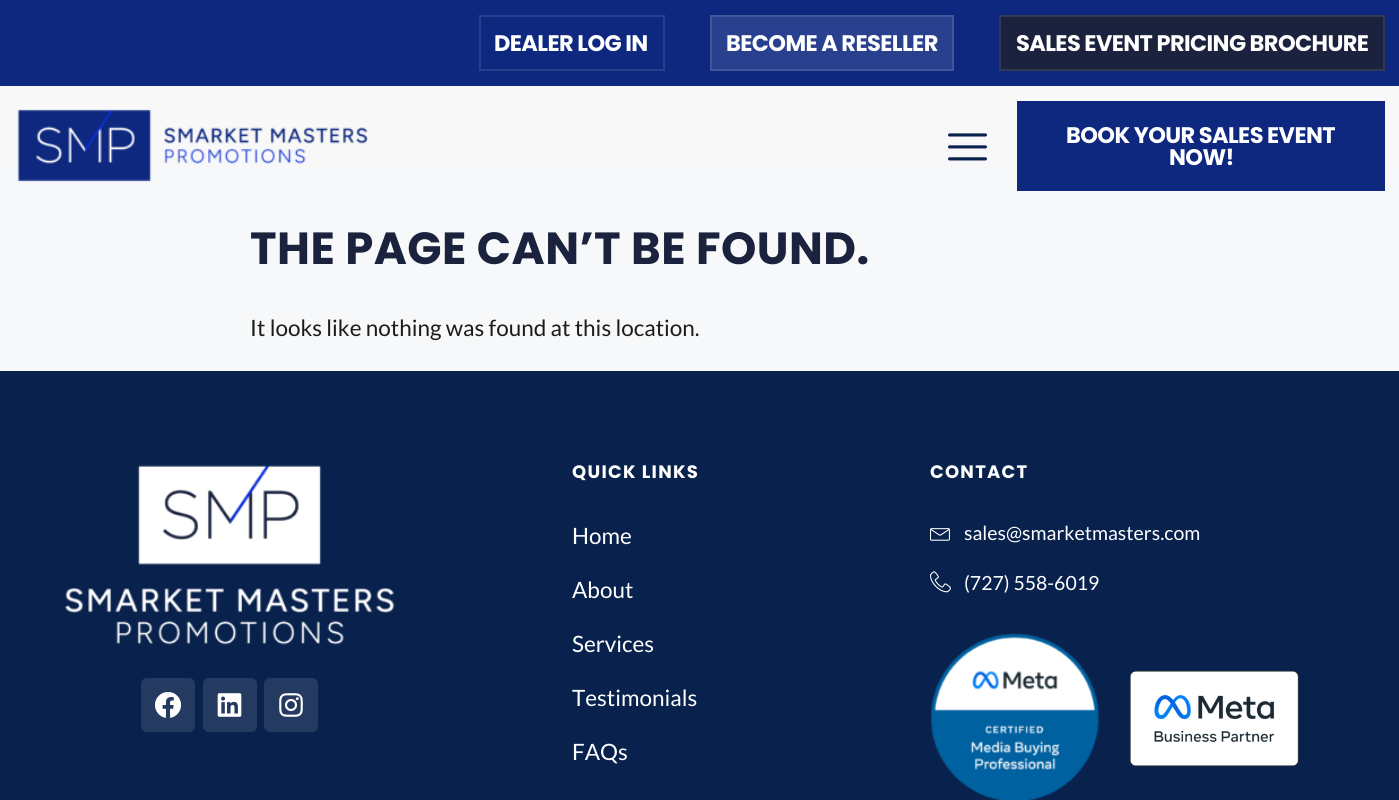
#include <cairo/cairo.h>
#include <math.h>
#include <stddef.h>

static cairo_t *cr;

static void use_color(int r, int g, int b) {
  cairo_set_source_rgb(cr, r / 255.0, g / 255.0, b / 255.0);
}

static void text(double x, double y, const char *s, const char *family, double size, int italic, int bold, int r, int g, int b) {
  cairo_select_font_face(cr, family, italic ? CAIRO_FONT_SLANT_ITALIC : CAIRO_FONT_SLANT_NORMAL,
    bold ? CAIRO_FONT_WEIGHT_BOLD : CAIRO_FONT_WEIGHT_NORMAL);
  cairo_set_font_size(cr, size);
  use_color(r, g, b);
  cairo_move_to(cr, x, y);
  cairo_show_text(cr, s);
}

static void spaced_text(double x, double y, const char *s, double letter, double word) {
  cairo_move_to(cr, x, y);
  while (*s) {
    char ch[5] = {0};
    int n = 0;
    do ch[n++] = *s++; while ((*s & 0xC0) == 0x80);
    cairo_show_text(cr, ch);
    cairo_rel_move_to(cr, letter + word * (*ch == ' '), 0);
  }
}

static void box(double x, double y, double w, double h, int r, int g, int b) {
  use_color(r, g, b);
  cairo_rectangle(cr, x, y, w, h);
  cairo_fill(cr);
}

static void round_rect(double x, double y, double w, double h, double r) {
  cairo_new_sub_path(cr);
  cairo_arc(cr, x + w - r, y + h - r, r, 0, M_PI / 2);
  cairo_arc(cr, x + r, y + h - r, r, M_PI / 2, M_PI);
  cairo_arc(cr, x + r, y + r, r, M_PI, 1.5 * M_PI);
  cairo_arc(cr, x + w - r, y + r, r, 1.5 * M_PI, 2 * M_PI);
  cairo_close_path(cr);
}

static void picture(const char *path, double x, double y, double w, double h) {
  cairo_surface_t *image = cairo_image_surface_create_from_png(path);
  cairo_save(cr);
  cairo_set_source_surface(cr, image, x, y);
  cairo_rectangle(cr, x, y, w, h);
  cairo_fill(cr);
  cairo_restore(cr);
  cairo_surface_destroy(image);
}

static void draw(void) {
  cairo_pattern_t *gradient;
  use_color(255, 255, 255);
  cairo_paint(cr);
  gradient = cairo_pattern_create_linear(700, 0, 700, 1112);
  cairo_pattern_add_color_stop_rgba(gradient, 0, 0.973, 0.973, 0.973, 1);
  cairo_pattern_add_color_stop_rgba(gradient, 1, 0.957, 0.973, 0.984, 1);
  cairo_set_source(cr, gradient);
  cairo_pattern_destroy(gradient);
  cairo_rectangle(cr, 0, 86, 1399, 285);
  cairo_fill(cr);
  box(0, 0, 1399, 86, 14, 40, 128);
  cairo_rectangle(cr, 480, 16, 184, 54);
  use_color(41, 64, 142);
  cairo_stroke(cr);
  cairo_rectangle(cr, 711, 16, 242, 54);
  cairo_fill_preserve(cr);
  use_color(65, 85, 154);
  cairo_stroke(cr);
  use_color(26, 34, 61);
  cairo_rectangle(cr, 1000, 16, 384, 54);
  cairo_fill_preserve(cr);
  use_color(51, 58, 82);
  cairo_stroke(cr);
  picture("img_01.png", 17, 109, 351, 73);
  picture("img_02.png", 948, 133, 39, 28);
  box(1017, 101, 368, 90, 14, 40, 128);
  box(0, 371, 1399, 429, 9, 34, 77);
  picture("img_03.png", 65, 465, 330, 180);
  use_color(36, 58, 97);
  round_rect(141, 678, 54, 54, 6);
  cairo_fill(cr);
  picture("img_04.png", 155, 692, 27, 26);
  round_rect(203, 678, 54, 54, 6);
  cairo_fill(cr);
  picture("img_05.png", 217, 693, 25, 24);
  round_rect(264, 678, 54, 54, 6);
  cairo_fill(cr);
  picture("img_06.png", 279, 693, 24, 24);
  picture("img_07.png", 930, 528, 20, 13);
  picture("img_08.png", 930, 571, 21, 22);
  picture("img_09.png", 930, 633, 170, 167);
  picture("img_10.png", 1129, 670, 170, 97);
  cairo_select_font_face(cr, "Poppins", CAIRO_FONT_SLANT_NORMAL, CAIRO_FONT_WEIGHT_BOLD);
  cairo_set_font_size(cr, 22.5);
  use_color(255, 255, 255);
  spaced_text(494, 51, "DEALER LOG IN", -0.6, 0);
  spaced_text(726, 51, "BECOME A RESELLER", -0.6, 0);
  spaced_text(1016, 51, "SALES EVENT PRICING BROCHURE", -0.6, 0);
  spaced_text(1066, 143, "BOOK YOUR SALES EVENT", -0.6, 0);
  spaced_text(1169, 165, "NOW!", -0.6, 0);
  cairo_set_font_size(cr, 45);
  use_color(26, 34, 61);
  spaced_text(250, 264, "THE PAGE CAN’T BE FOUND.", 0.45, 0);
  text(250, 336, "It looks like nothing was found at this location.", "Lato", 22.5, 0, 0, 27, 27, 27);
  cairo_select_font_face(cr, "Poppins", CAIRO_FONT_SLANT_NORMAL, CAIRO_FONT_WEIGHT_BOLD);
  cairo_set_font_size(cr, 18);
  use_color(255, 255, 255);
  spaced_text(572, 478, "QUICK LINKS", 1.25, 0);
  text(572, 544, "Home", "Lato", 22.5, 0, 0, 255, 255, 255);
  text(572, 598, "About", "Lato", 22.5, 0, 0, 255, 255, 255);
  text(572, 652, "Services", "Lato", 22.5, 0, 0, 255, 255, 255);
  text(572, 706, "Testimonials", "Lato", 22.5, 0, 0, 255, 255, 255);
  text(572, 760, "FAQs", "Lato", 22.5, 0, 0, 255, 255, 255);
  cairo_select_font_face(cr, "Poppins", CAIRO_FONT_SLANT_NORMAL, CAIRO_FONT_WEIGHT_BOLD);
  cairo_set_font_size(cr, 18);
  spaced_text(930, 478, "CONTACT", 1.25, 0);
  text(964, 540, "sales@smarketmasters.com", "Lato", 19.5, 0, 0, 255, 255, 255);
  text(964, 590, "(727) 558-6019", "Lato", 19.5, 0, 0, 255, 255, 255);
}

int main(void) {
  cairo_surface_t *surface = cairo_image_surface_create(CAIRO_FORMAT_RGB24, 1399, 800);
  cr = cairo_create(surface);
  cairo_font_options_t *options = cairo_font_options_create();
  cairo_font_options_set_hint_metrics(options, CAIRO_HINT_METRICS_OFF);
  cairo_font_options_set_hint_style(options, CAIRO_HINT_STYLE_NONE);
  cairo_set_font_options(cr, options);
  cairo_set_miter_limit(cr, 4);
  draw();
  cairo_surface_write_to_png(surface, "out.png");
  cairo_font_options_destroy(options);
  cairo_destroy(cr);
  cairo_surface_destroy(surface);
  return 0;
}
